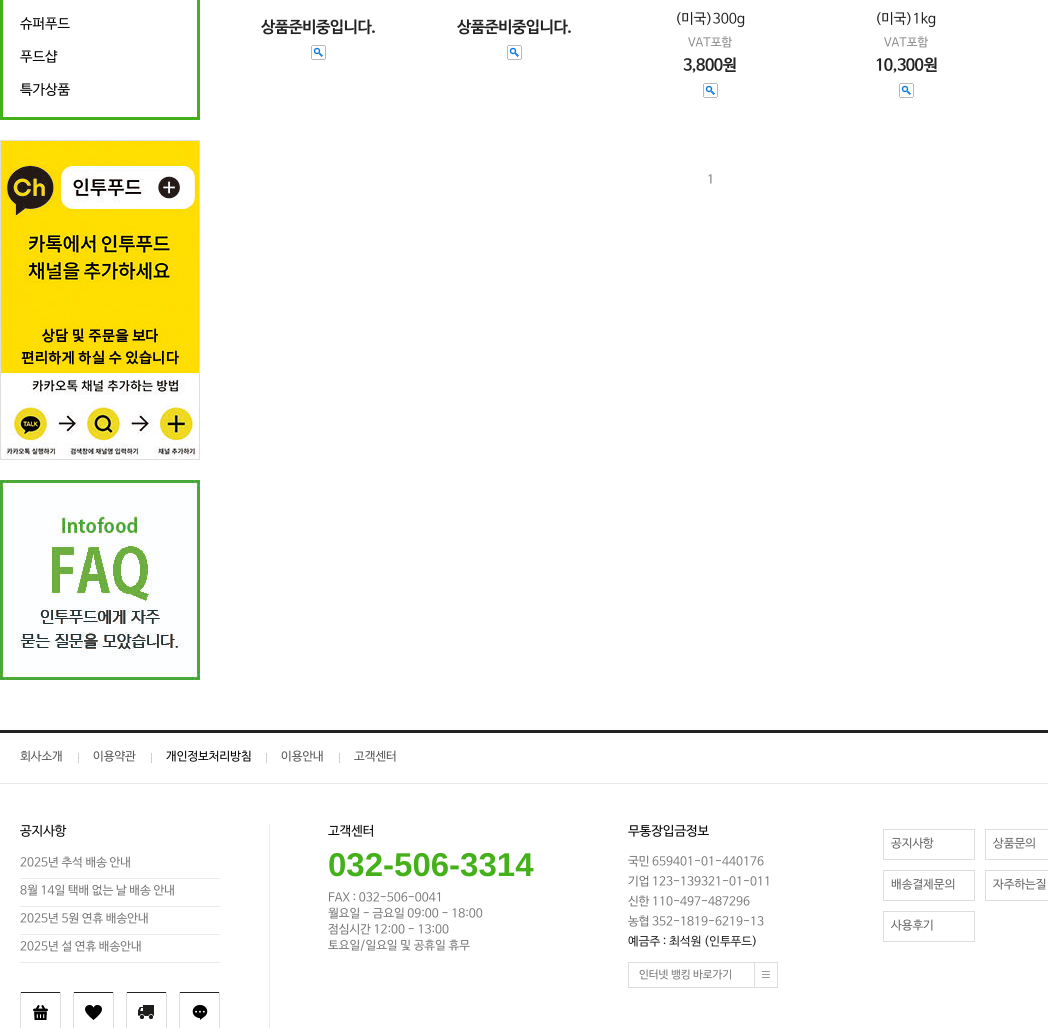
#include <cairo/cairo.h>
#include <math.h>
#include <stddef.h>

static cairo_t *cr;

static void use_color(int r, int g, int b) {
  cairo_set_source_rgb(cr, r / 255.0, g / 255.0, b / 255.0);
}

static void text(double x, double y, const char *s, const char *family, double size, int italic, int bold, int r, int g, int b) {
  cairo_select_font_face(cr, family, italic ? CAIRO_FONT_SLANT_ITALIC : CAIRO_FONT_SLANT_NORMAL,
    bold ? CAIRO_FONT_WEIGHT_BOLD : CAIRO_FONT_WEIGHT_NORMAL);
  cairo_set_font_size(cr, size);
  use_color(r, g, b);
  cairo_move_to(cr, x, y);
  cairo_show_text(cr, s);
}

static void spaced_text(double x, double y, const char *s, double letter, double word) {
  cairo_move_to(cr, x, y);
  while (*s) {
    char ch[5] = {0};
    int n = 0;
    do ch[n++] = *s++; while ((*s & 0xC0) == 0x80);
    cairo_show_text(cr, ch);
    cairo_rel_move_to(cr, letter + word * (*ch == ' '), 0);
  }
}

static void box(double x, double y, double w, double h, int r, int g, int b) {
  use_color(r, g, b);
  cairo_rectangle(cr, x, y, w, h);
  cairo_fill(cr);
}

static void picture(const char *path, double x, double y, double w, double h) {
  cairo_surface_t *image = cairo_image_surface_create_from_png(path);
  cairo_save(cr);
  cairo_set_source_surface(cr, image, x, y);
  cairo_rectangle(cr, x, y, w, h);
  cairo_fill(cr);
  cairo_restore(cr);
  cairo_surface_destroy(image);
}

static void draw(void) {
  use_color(255, 255, 255);
  cairo_paint(cr);
  box(197, 0, 3, 120, 69, 177, 26);
  box(0, 117, 200, 3, 69, 177, 26);
  box(0, 0, 3, 120, 69, 177, 26);
  picture("img_01.png", 0, 140, 200, 320);
  picture("img_02.png", 0, 480, 200, 200);
  picture("img_03.png", 311, 45, 15, 15);
  picture("img_03.png", 507, 45, 15, 15);
  picture("img_03.png", 703, 83, 15, 15);
  picture("img_03.png", 899, 83, 15, 15);
  box(0, 730, 1048, 3, 34, 34, 34);
  box(0, 783, 1048, 1, 233, 233, 233);
  picture("img_04.png", 78, 753, 1, 10);
  picture("img_04.png", 151, 753, 1, 10);
  picture("img_04.png", 266, 753, 1, 10);
  picture("img_04.png", 339, 753, 1, 10);
  box(269, 824, 1, 204, 233, 233, 233);
  box(20, 878, 200, 1, 234, 234, 234);
  box(20, 906, 200, 1, 234, 234, 234);
  box(20, 934, 200, 1, 234, 234, 234);
  box(20, 962, 200, 1, 234, 234, 234);
  box(20, 992, 41, 1, 34, 34, 34);
  box(20, 992, 1, 36, 222, 222, 222);
  picture("img_05.png", 33, 1005, 15, 15);
  box(60, 992, 1, 36, 222, 222, 222);
  box(73, 992, 41, 1, 34, 34, 34);
  box(73, 992, 1, 36, 222, 222, 222);
  picture("img_06.png", 85, 1005, 17, 15);
  box(113, 992, 1, 36, 222, 222, 222);
  box(126, 992, 41, 1, 34, 34, 34);
  box(126, 992, 1, 36, 222, 222, 222);
  picture("img_07.png", 138, 1005, 16, 14);
  box(166, 992, 1, 36, 222, 222, 222);
  box(179, 992, 41, 1, 34, 34, 34);
  box(179, 992, 1, 36, 222, 222, 222);
  picture("img_08.png", 192, 1005, 16, 15);
  box(219, 992, 1, 36, 222, 222, 222);
  box(628, 962, 126, 1, 222, 222, 222);
  box(628, 987, 126, 1, 222, 222, 222);
  box(628, 962, 1, 26, 222, 222, 222);
  picture("img_09.png", 754, 962, 24, 26);
  cairo_rectangle(cr, 883.5, 829.5, 91, 30);
  cairo_set_line_width(cr, 1);
  cairo_stroke(cr);
  cairo_rectangle(cr, 985.5, 829.5, 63, 30);
  cairo_stroke(cr);
  cairo_rectangle(cr, 883.5, 870.5, 91, 30);
  cairo_stroke(cr);
  cairo_rectangle(cr, 985.5, 870.5, 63, 30);
  cairo_stroke(cr);
  cairo_rectangle(cr, 883.5, 911.5, 91, 30);
  cairo_stroke(cr);
  text(20, 28, "슈퍼푸드", "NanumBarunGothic", 14, 0, 0, 0, 0, 0);
  text(20, 61, "푸드샵", "NanumBarunGothic", 14, 0, 0, 0, 0, 0);
  text(20, 94, "특가상품", "NanumBarunGothic", 14, 0, 0, 0, 0, 0);
  cairo_select_font_face(cr, "NanumBarunGothic", CAIRO_FONT_SLANT_NORMAL, CAIRO_FONT_WEIGHT_BOLD);
  cairo_set_font_size(cr, 16);
  use_color(34, 34, 34);
  spaced_text(261, 32, "상품준비중입니다.", -0.5, 0);
  spaced_text(457, 32, "상품준비중입니다.", -0.5, 0);
  text(675, 23, "(미국)300g", "NanumBarunGothic", 14, 0, 0, 34, 34, 34);
  text(688, 46, "VAT포함", "NanumBarunGothic", 12, 0, 0, 136, 136, 136);
  cairo_select_font_face(cr, "NanumBarunGothic", CAIRO_FONT_SLANT_NORMAL, CAIRO_FONT_WEIGHT_BOLD);
  cairo_set_font_size(cr, 16);
  use_color(34, 34, 34);
  spaced_text(683, 70, "3,800원", -0.5, 0);
  text(875, 23, "(미국)1kg", "NanumBarunGothic", 14, 0, 0, 34, 34, 34);
  text(884, 46, "VAT포함", "NanumBarunGothic", 12, 0, 0, 136, 136, 136);
  cairo_select_font_face(cr, "NanumBarunGothic", CAIRO_FONT_SLANT_NORMAL, CAIRO_FONT_WEIGHT_BOLD);
  cairo_set_font_size(cr, 16);
  use_color(34, 34, 34);
  spaced_text(875, 70, "10,300원", -0.5, 0);
  cairo_set_font_size(cr, 12);
  use_color(153, 153, 153);
  spaced_text(707, 183, "1", -1, 0);
  text(20, 760, "회사소개", "NanumBarunGothic", 12, 0, 0, 85, 85, 85);
  text(93, 760, "이용약관", "NanumBarunGothic", 12, 0, 0, 85, 85, 85);
  text(166, 760, "개인정보처리방침", "NanumBarunGothic", 12, 0, 0, 0, 0, 0);
  text(281, 760, "이용안내", "NanumBarunGothic", 12, 0, 0, 85, 85, 85);
  text(354, 760, "고객센터", "NanumBarunGothic", 12, 0, 0, 85, 85, 85);
  text(20, 835, "공지사항", "NanumBarunGothic", 13, 0, 0, 0, 0, 0);
  text(20, 866, "2025년 추석 배송 안내", "NanumBarunGothic", 12, 0, 0, 119, 119, 119);
  text(20, 894, "8월 14일 택배 없는 날 배송 안내", "NanumBarunGothic", 12, 0, 0, 119, 119, 119);
  text(20, 922, "2025년 5원 연휴 배송안내", "NanumBarunGothic", 12, 0, 0, 119, 119, 119);
  text(20, 950, "2025년 설 연휴 배송안내", "NanumBarunGothic", 12, 0, 0, 119, 119, 119);
  text(328, 835, "고객센터", "NanumBarunGothic", 13, 0, 0, 0, 0, 0);
  text(328, 876, "032-506-3314", "Liberation Sans", 33, 0, 1, 69, 177, 26);
  text(328, 901, "FAX : 032-506-0041", "NanumBarunGothic", 12, 0, 0, 119, 119, 119);
  text(328, 917, "월요일 - 금요일 09:00 - 18:00", "NanumBarunGothic", 12, 0, 0, 119, 119, 119);
  text(328, 933, "점심시간 12:00 - 13:00", "NanumBarunGothic", 12, 0, 0, 119, 119, 119);
  text(328, 949, "토요일/일요일 및 공휴일 휴무", "NanumBarunGothic", 12, 0, 0, 119, 119, 119);
  text(628, 835, "무통장입금정보", "NanumBarunGothic", 13, 0, 0, 0, 0, 0);
  text(628, 865, "국민 659401-01-440176", "NanumBarunGothic", 12, 0, 0, 119, 119, 119);
  text(628, 885, "기업 123-139321-01-011", "NanumBarunGothic", 12, 0, 0, 119, 119, 119);
  text(628, 905, "신한 110-497-487296", "NanumBarunGothic", 12, 0, 0, 119, 119, 119);
  text(628, 925, "농협 352-1819-6219-13", "NanumBarunGothic", 12, 0, 0, 119, 119, 119);
  text(628, 945, "예금주 : 최석원 (인투푸드)", "NanumBarunGothic", 12, 0, 0, 34, 34, 34);
  text(639, 978, "인터넷 뱅킹 바로가기", "NanumBarunGothic", 11, 0, 0, 119, 119, 119);
  text(891, 847, "공지사항", "NanumBarunGothic", 12, 0, 0, 102, 102, 102);
  text(993, 847, "상품문의", "NanumBarunGothic", 12, 0, 0, 102, 102, 102);
  text(891, 888, "배송결제문의", "NanumBarunGothic", 12, 0, 0, 102, 102, 102);
  text(993, 888, "자주하는질", "NanumBarunGothic", 12, 0, 0, 102, 102, 102);
  text(891, 929, "사용후기", "NanumBarunGothic", 12, 0, 0, 102, 102, 102);
}

int main(void) {
  cairo_surface_t *surface = cairo_image_surface_create(CAIRO_FORMAT_RGB24, 1048, 1028);
  cr = cairo_create(surface);
  cairo_font_options_t *options = cairo_font_options_create();
  cairo_font_options_set_hint_metrics(options, CAIRO_HINT_METRICS_OFF);
  cairo_font_options_set_hint_style(options, CAIRO_HINT_STYLE_NONE);
  cairo_set_font_options(cr, options);
  cairo_set_miter_limit(cr, 4);
  draw();
  cairo_surface_write_to_png(surface, "out.png");
  cairo_font_options_destroy(options);
  cairo_destroy(cr);
  cairo_surface_destroy(surface);
  return 0;
}
